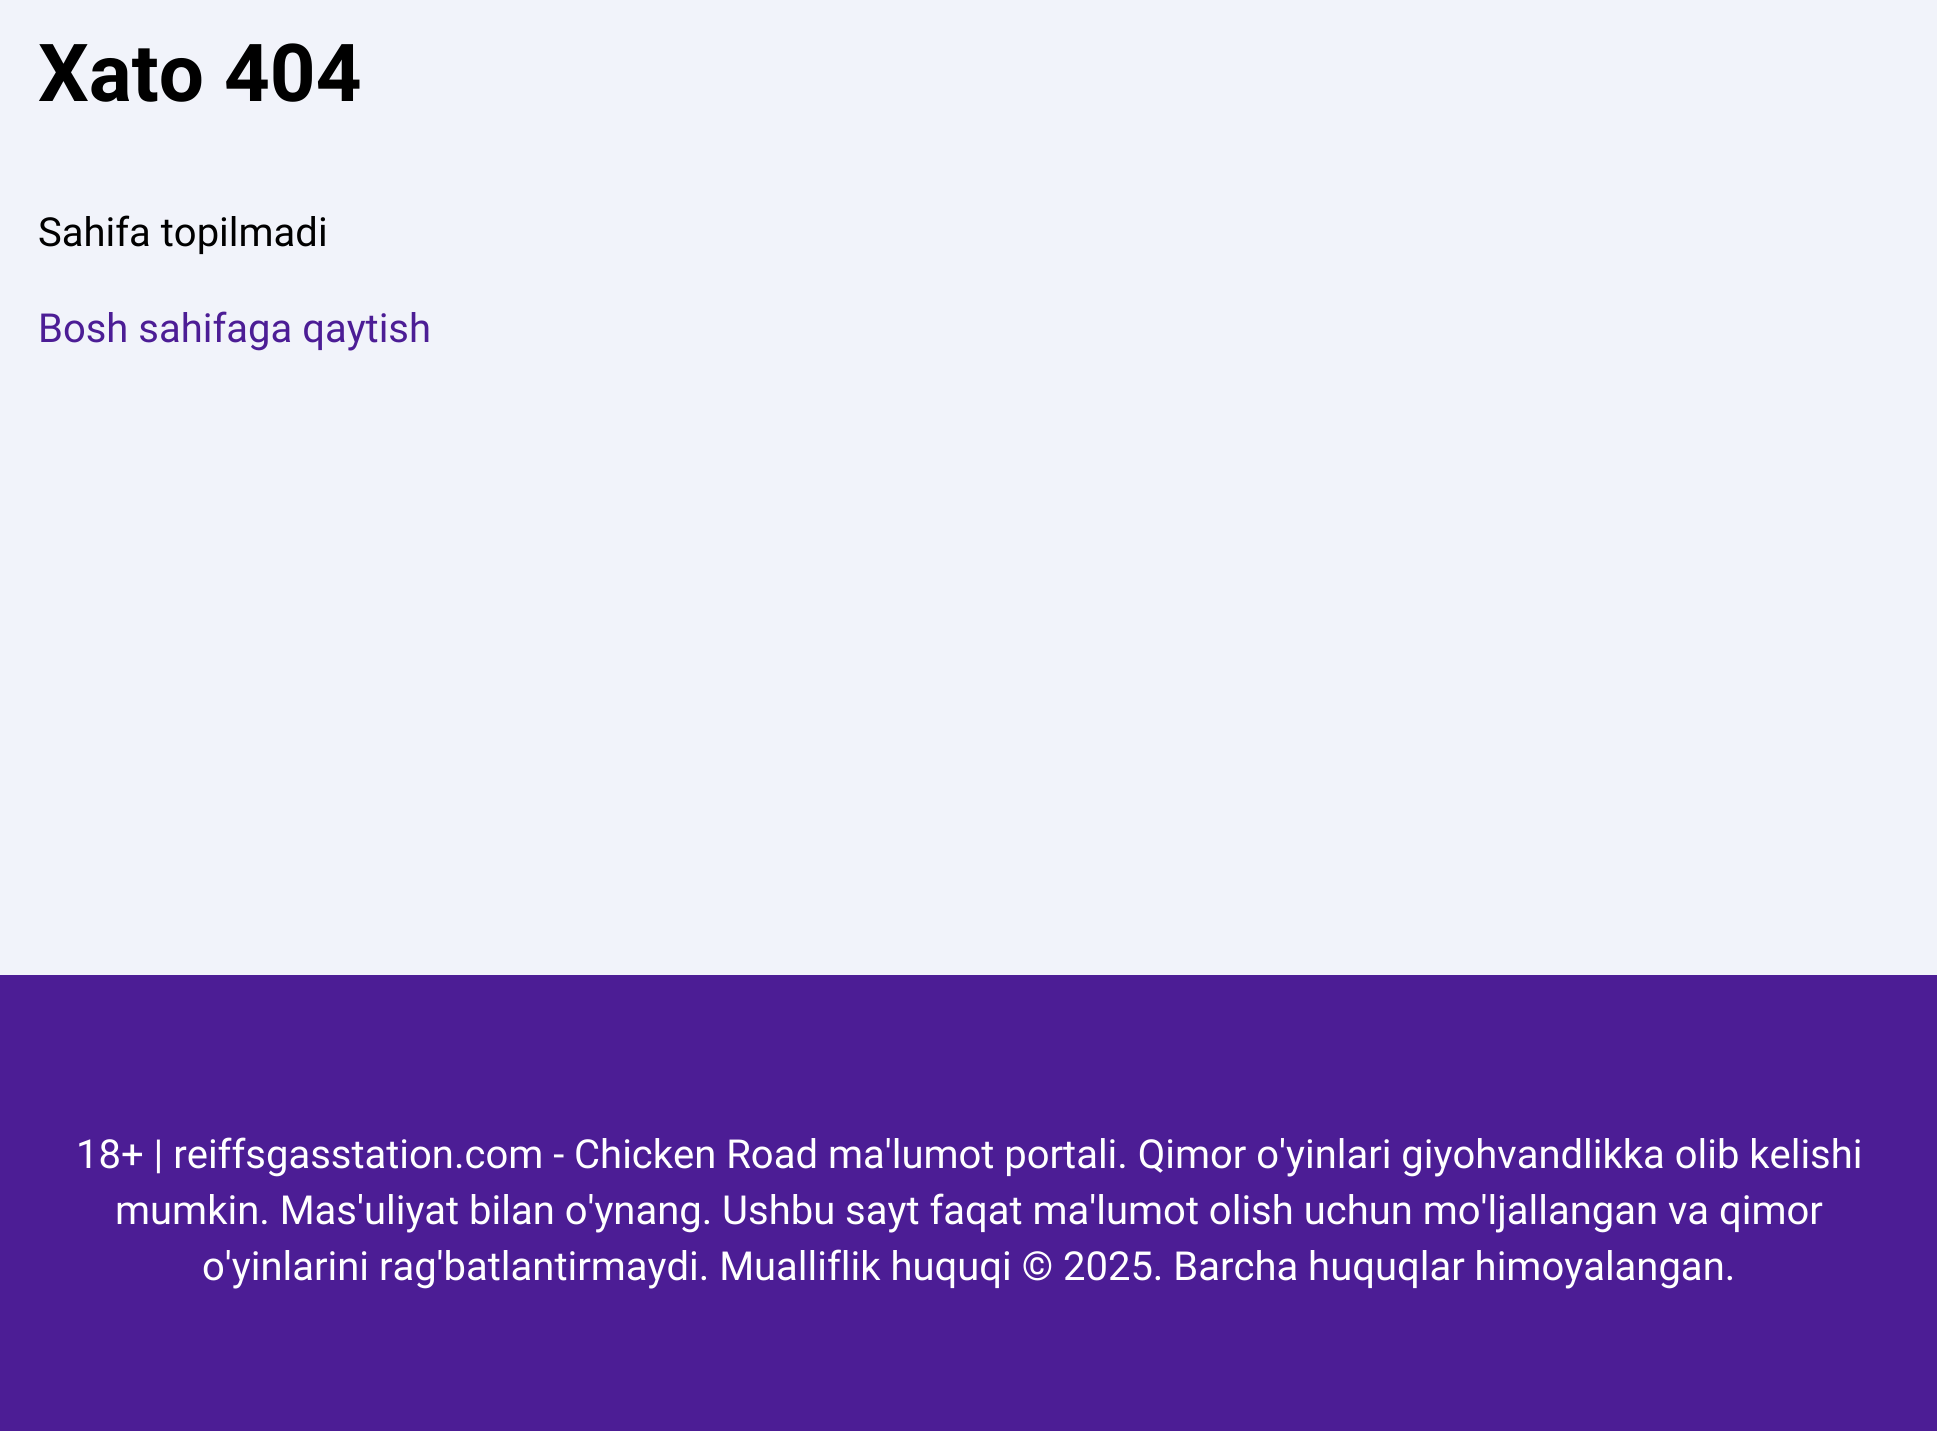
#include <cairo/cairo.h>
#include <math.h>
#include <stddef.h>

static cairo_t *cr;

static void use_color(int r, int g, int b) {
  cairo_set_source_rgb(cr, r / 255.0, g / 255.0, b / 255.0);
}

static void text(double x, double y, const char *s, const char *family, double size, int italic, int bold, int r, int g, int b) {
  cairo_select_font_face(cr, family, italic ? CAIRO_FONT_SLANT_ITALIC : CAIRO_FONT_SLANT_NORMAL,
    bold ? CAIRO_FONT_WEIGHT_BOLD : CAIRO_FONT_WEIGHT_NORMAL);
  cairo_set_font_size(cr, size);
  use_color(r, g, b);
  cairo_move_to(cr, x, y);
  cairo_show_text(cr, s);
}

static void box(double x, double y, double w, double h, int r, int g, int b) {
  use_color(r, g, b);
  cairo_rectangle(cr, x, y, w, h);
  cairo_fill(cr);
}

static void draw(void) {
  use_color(241, 243, 250);
  cairo_paint(cr);
  box(0, 975, 1937, 456, 76, 29, 149);
  text(38, 101, "Xato 404", "Roboto", 80, 0, 1, 0, 0, 0);
  text(38, 246, "Sahifa topilmadi", "Roboto", 40, 0, 0, 0, 0, 0);
  text(38, 342, "Bosh sahifaga qaytish", "Roboto", 40, 0, 0, 76, 29, 149);
  text(76, 1168, "18+ | reiffsgasstation.com - Chicken Road ma'lumot portali. Qimor o'yinlari giyohvandlikka olib kelishi", "Roboto", 40, 0, 0, 255, 255, 255);
  text(115, 1224, "mumkin. Mas'uliyat bilan o'ynang. Ushbu sayt faqat ma'lumot olish uchun mo'ljallangan va qimor", "Roboto", 40, 0, 0, 255, 255, 255);
  text(202, 1280, "o'yinlarini rag'batlantirmaydi. Mualliflik huquqi © 2025. Barcha huquqlar himoyalangan.", "Roboto", 40, 0, 0, 255, 255, 255);
}

int main(void) {
  cairo_surface_t *surface = cairo_image_surface_create(CAIRO_FORMAT_RGB24, 1937, 1431);
  cr = cairo_create(surface);
  cairo_font_options_t *options = cairo_font_options_create();
  cairo_font_options_set_hint_metrics(options, CAIRO_HINT_METRICS_OFF);
  cairo_font_options_set_hint_style(options, CAIRO_HINT_STYLE_NONE);
  cairo_set_font_options(cr, options);
  cairo_set_miter_limit(cr, 4);
  draw();
  cairo_surface_write_to_png(surface, "out.png");
  cairo_font_options_destroy(options);
  cairo_destroy(cr);
  cairo_surface_destroy(surface);
  return 0;
}
